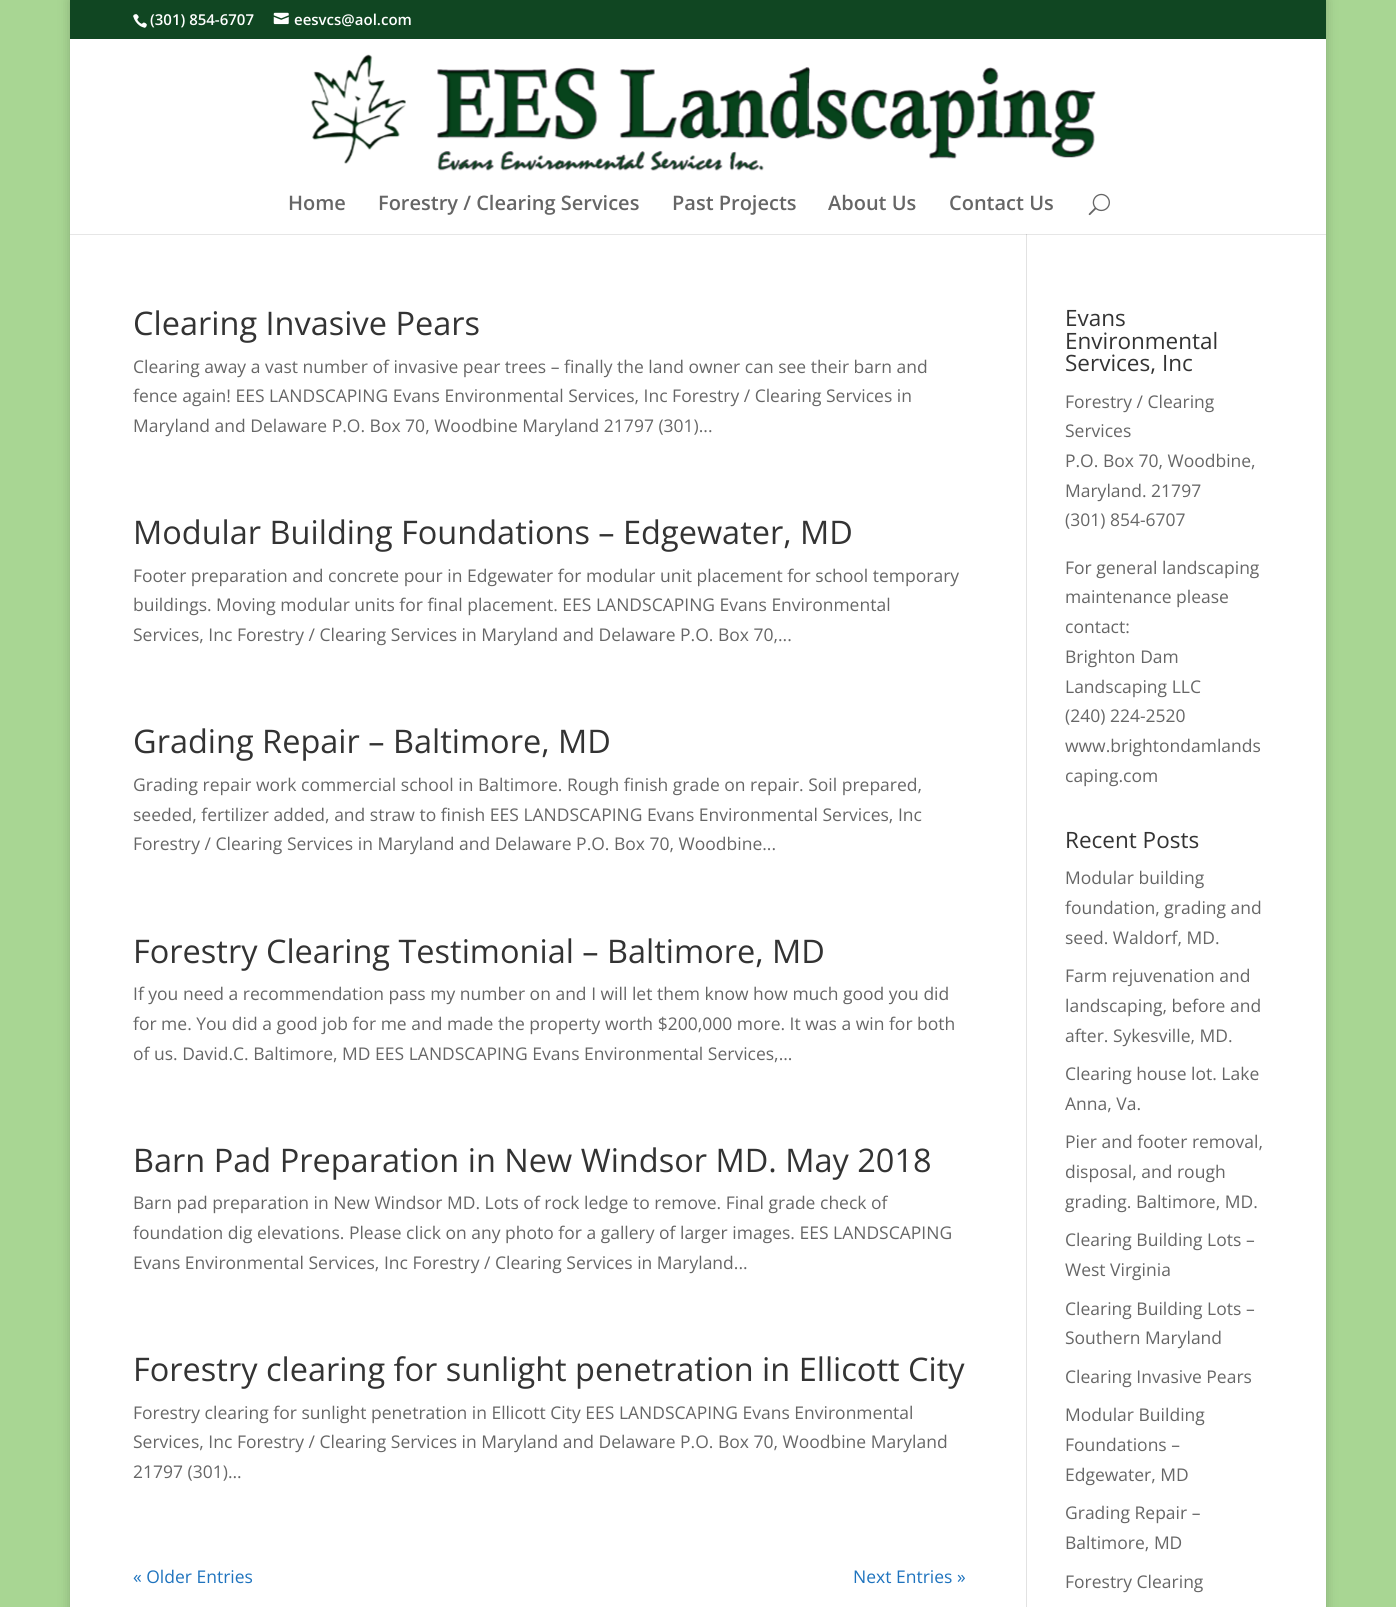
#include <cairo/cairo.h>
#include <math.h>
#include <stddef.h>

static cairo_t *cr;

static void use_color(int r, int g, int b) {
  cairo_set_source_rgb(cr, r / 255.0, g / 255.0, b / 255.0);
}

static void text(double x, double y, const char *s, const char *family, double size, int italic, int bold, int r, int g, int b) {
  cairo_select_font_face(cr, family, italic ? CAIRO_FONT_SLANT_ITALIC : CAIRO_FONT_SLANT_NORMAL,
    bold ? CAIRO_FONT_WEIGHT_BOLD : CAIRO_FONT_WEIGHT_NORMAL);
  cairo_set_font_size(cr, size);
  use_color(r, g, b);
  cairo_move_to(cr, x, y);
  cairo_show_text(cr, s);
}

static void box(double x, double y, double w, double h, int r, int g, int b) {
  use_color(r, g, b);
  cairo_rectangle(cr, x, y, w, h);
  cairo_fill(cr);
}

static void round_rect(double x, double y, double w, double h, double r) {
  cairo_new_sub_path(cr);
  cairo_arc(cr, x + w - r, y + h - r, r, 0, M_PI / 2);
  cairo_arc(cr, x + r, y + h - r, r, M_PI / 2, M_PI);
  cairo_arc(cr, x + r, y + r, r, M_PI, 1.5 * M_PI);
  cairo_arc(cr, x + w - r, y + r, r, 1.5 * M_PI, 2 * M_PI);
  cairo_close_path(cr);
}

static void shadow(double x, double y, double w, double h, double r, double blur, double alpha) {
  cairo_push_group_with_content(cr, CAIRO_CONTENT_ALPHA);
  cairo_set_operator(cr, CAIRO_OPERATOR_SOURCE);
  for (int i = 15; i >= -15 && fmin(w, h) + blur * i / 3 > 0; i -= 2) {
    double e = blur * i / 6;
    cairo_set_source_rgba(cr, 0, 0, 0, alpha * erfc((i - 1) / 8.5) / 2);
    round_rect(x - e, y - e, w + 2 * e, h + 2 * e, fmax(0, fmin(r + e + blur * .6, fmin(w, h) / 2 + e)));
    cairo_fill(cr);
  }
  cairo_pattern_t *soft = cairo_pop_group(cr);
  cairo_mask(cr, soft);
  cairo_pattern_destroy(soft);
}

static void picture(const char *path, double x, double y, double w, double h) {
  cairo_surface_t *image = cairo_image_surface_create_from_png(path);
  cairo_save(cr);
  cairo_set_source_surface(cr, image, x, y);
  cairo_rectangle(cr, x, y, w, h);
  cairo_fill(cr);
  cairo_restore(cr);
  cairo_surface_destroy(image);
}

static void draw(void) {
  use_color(168, 214, 147);
  cairo_paint(cr);
  use_color(0, 0, 0);
  shadow(70, 0, 1256, 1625, 0, 6, 0.2);
  box(70, 0, 1256, 39, 16, 70, 34);
  picture("img_01.png", 133, 14, 14, 14);
  picture("img_02.png", 273, 12, 16, 13);
  box(70, 39, 1256, 195, 255, 255, 255);
  picture("img_03.png", 311, 54, 785, 117);
  picture("img_04.png", 1088, 193, 22, 23);
  box(70, 235, 1256, 1372, 255, 255, 255);
  box(70, 234, 1256, 1, 230, 230, 230);
  box(1026, 234, 1, 1373, 226, 226, 226);
  box(1026, 234, 1, 1, 203, 203, 203);
  text(150, 25, "(301) 854-6707", "Open Sans SemiBold", 15, 0, 0, 255, 255, 255);
  text(294, 25, "eesvcs@aol.com", "Open Sans SemiBold", 15, 0, 0, 255, 255, 255);
  text(288, 210, "Home", "Open Sans SemiBold", 20, 0, 0, 102, 102, 102);
  text(378, 210, "Forestry / Clearing Services", "Open Sans SemiBold", 20, 0, 0, 102, 102, 102);
  text(672, 210, "Past Projects", "Open Sans SemiBold", 20, 0, 0, 102, 102, 102);
  text(828, 210, "About Us", "Open Sans SemiBold", 20, 0, 0, 102, 102, 102);
  text(949, 210, "Contact Us", "Open Sans SemiBold", 20, 0, 0, 102, 102, 102);
  text(133, 335, "Clearing Invasive Pears", "Open Sans", 32.5, 0, 0, 51, 51, 51);
  text(133, 373, "Clearing away a vast number of invasive pear trees – finally the land owner can see their barn and", "Open Sans", 17.5, 0, 0, 102, 102, 102);
  text(133, 402, "fence again! EES LANDSCAPING Evans Environmental Services, Inc Forestry / Clearing Services in", "Open Sans", 17.5, 0, 0, 102, 102, 102);
  text(133, 432, "Maryland and Delaware P.O. Box 70, Woodbine Maryland 21797 (301)...", "Open Sans", 17.5, 0, 0, 102, 102, 102);
  text(133, 544, "Modular Building Foundations – Edgewater, MD", "Open Sans", 32.5, 0, 0, 51, 51, 51);
  text(133, 582, "Footer preparation and concrete pour in Edgewater for modular unit placement for school temporary", "Open Sans", 17.5, 0, 0, 102, 102, 102);
  text(133, 611, "buildings. Moving modular units for final placement. EES LANDSCAPING Evans Environmental", "Open Sans", 17.5, 0, 0, 102, 102, 102);
  text(133, 641, "Services, Inc Forestry / Clearing Services in Maryland and Delaware P.O. Box 70,...", "Open Sans", 17.5, 0, 0, 102, 102, 102);
  text(133, 753, "Grading Repair – Baltimore, MD", "Open Sans", 32.5, 0, 0, 51, 51, 51);
  text(133, 791, "Grading repair work commercial school in Baltimore. Rough finish grade on repair. Soil prepared,", "Open Sans", 17.5, 0, 0, 102, 102, 102);
  text(133, 821, "seeded, fertilizer added, and straw to finish EES LANDSCAPING Evans Environmental Services, Inc", "Open Sans", 17.5, 0, 0, 102, 102, 102);
  text(133, 850, "Forestry / Clearing Services in Maryland and Delaware P.O. Box 70, Woodbine...", "Open Sans", 17.5, 0, 0, 102, 102, 102);
  text(133, 963, "Forestry Clearing Testimonial – Baltimore, MD", "Open Sans", 32.5, 0, 0, 51, 51, 51);
  text(133, 1000, "If you need a recommendation pass my number on and I will let them know how much good you did", "Open Sans", 17.5, 0, 0, 102, 102, 102);
  text(133, 1030, "for me. You did a good job for me and made the property worth $200,000 more. It was a win for both", "Open Sans", 17.5, 0, 0, 102, 102, 102);
  text(133, 1060, "of us. David.C. Baltimore, MD EES LANDSCAPING Evans Environmental Services,...", "Open Sans", 17.5, 0, 0, 102, 102, 102);
  text(133, 1172, "Barn Pad Preparation in New Windsor MD. May 2018", "Open Sans", 32.5, 0, 0, 51, 51, 51);
  text(133, 1209, "Barn pad preparation in New Windsor MD. Lots of rock ledge to remove. Final grade check of", "Open Sans", 17.5, 0, 0, 102, 102, 102);
  text(133, 1239, "foundation dig elevations. Please click on any photo for a gallery of larger images. EES LANDSCAPING", "Open Sans", 17.5, 0, 0, 102, 102, 102);
  text(133, 1269, "Evans Environmental Services, Inc Forestry / Clearing Services in Maryland...", "Open Sans", 17.5, 0, 0, 102, 102, 102);
  text(133, 1381, "Forestry clearing for sunlight penetration in Ellicott City", "Open Sans", 32.5, 0, 0, 51, 51, 51);
  text(133, 1419, "Forestry clearing for sunlight penetration in Ellicott City EES LANDSCAPING Evans Environmental", "Open Sans", 17.5, 0, 0, 102, 102, 102);
  text(133, 1448, "Services, Inc Forestry / Clearing Services in Maryland and Delaware P.O. Box 70, Woodbine Maryland", "Open Sans", 17.5, 0, 0, 102, 102, 102);
  text(133, 1478, "21797 (301)...", "Open Sans", 17.5, 0, 0, 102, 102, 102);
  text(133, 1583, "« Older Entries", "Open Sans", 17.5, 0, 0, 30, 115, 190);
  text(853, 1583, "Next Entries »", "Open Sans", 17.5, 0, 0, 30, 115, 190);
  text(1065, 326, "Evans", "Open Sans", 22.5, 0, 0, 51, 51, 51);
  text(1065, 349, "Environmental", "Open Sans", 22.5, 0, 0, 51, 51, 51);
  text(1065, 371, "Services, Inc", "Open Sans", 22.5, 0, 0, 51, 51, 51);
  text(1065, 408, "Forestry / Clearing", "Open Sans", 17.5, 0, 0, 102, 102, 102);
  text(1065, 437, "Services", "Open Sans", 17.5, 0, 0, 102, 102, 102);
  text(1065, 467, "P.O. Box 70, Woodbine,", "Open Sans", 17.5, 0, 0, 102, 102, 102);
  text(1065, 497, "Maryland. 21797", "Open Sans", 17.5, 0, 0, 102, 102, 102);
  text(1065, 526, "(301) 854-6707", "Open Sans", 17.5, 0, 0, 102, 102, 102);
  text(1065, 574, "For general landscaping", "Open Sans", 17.5, 0, 0, 102, 102, 102);
  text(1065, 603, "maintenance please", "Open Sans", 17.5, 0, 0, 102, 102, 102);
  text(1065, 633, "contact:", "Open Sans", 17.5, 0, 0, 102, 102, 102);
  text(1065, 663, "Brighton Dam", "Open Sans", 17.5, 0, 0, 102, 102, 102);
  text(1065, 693, "Landscaping LLC", "Open Sans", 17.5, 0, 0, 102, 102, 102);
  text(1065, 722, "(240) 224-2520", "Open Sans", 17.5, 0, 0, 102, 102, 102);
  text(1065, 752, "www.brightondamlands", "Open Sans", 17.5, 0, 0, 102, 102, 102);
  text(1065, 782, "caping.com", "Open Sans", 17.5, 0, 0, 102, 102, 102);
  text(1065, 848, "Recent Posts", "Open Sans", 22.5, 0, 0, 51, 51, 51);
  text(1065, 884, "Modular building", "Open Sans", 17.5, 0, 0, 102, 102, 102);
  text(1065, 914, "foundation, grading and", "Open Sans", 17.5, 0, 0, 102, 102, 102);
  text(1065, 944, "seed. Waldorf, MD.", "Open Sans", 17.5, 0, 0, 102, 102, 102);
  text(1065, 982, "Farm rejuvenation and", "Open Sans", 17.5, 0, 0, 102, 102, 102);
  text(1065, 1012, "landscaping, before and", "Open Sans", 17.5, 0, 0, 102, 102, 102);
  text(1065, 1042, "after. Sykesville, MD.", "Open Sans", 17.5, 0, 0, 102, 102, 102);
  text(1065, 1080, "Clearing house lot. Lake", "Open Sans", 17.5, 0, 0, 102, 102, 102);
  text(1065, 1110, "Anna, Va.", "Open Sans", 17.5, 0, 0, 102, 102, 102);
  text(1065, 1148, "Pier and footer removal,", "Open Sans", 17.5, 0, 0, 102, 102, 102);
  text(1065, 1178, "disposal, and rough", "Open Sans", 17.5, 0, 0, 102, 102, 102);
  text(1065, 1208, "grading. Baltimore, MD.", "Open Sans", 17.5, 0, 0, 102, 102, 102);
  text(1065, 1246, "Clearing Building Lots –", "Open Sans", 17.5, 0, 0, 102, 102, 102);
  text(1065, 1276, "West Virginia", "Open Sans", 17.5, 0, 0, 102, 102, 102);
  text(1065, 1315, "Clearing Building Lots –", "Open Sans", 17.5, 0, 0, 102, 102, 102);
  text(1065, 1344, "Southern Maryland", "Open Sans", 17.5, 0, 0, 102, 102, 102);
  text(1065, 1383, "Clearing Invasive Pears", "Open Sans", 17.5, 0, 0, 102, 102, 102);
  text(1065, 1421, "Modular Building", "Open Sans", 17.5, 0, 0, 102, 102, 102);
  text(1065, 1451, "Foundations –", "Open Sans", 17.5, 0, 0, 102, 102, 102);
  text(1065, 1481, "Edgewater, MD", "Open Sans", 17.5, 0, 0, 102, 102, 102);
  text(1065, 1519, "Grading Repair –", "Open Sans", 17.5, 0, 0, 102, 102, 102);
  text(1065, 1549, "Baltimore, MD", "Open Sans", 17.5, 0, 0, 102, 102, 102);
  text(1065, 1588, "Forestry Clearing", "Open Sans", 17.5, 0, 0, 102, 102, 102);
}

int main(void) {
  cairo_surface_t *surface = cairo_image_surface_create(CAIRO_FORMAT_RGB24, 1396, 1607);
  cr = cairo_create(surface);
  cairo_font_options_t *options = cairo_font_options_create();
  cairo_font_options_set_hint_metrics(options, CAIRO_HINT_METRICS_OFF);
  cairo_font_options_set_hint_style(options, CAIRO_HINT_STYLE_NONE);
  cairo_set_font_options(cr, options);
  cairo_set_miter_limit(cr, 4);
  draw();
  cairo_surface_write_to_png(surface, "out.png");
  cairo_font_options_destroy(options);
  cairo_destroy(cr);
  cairo_surface_destroy(surface);
  return 0;
}
